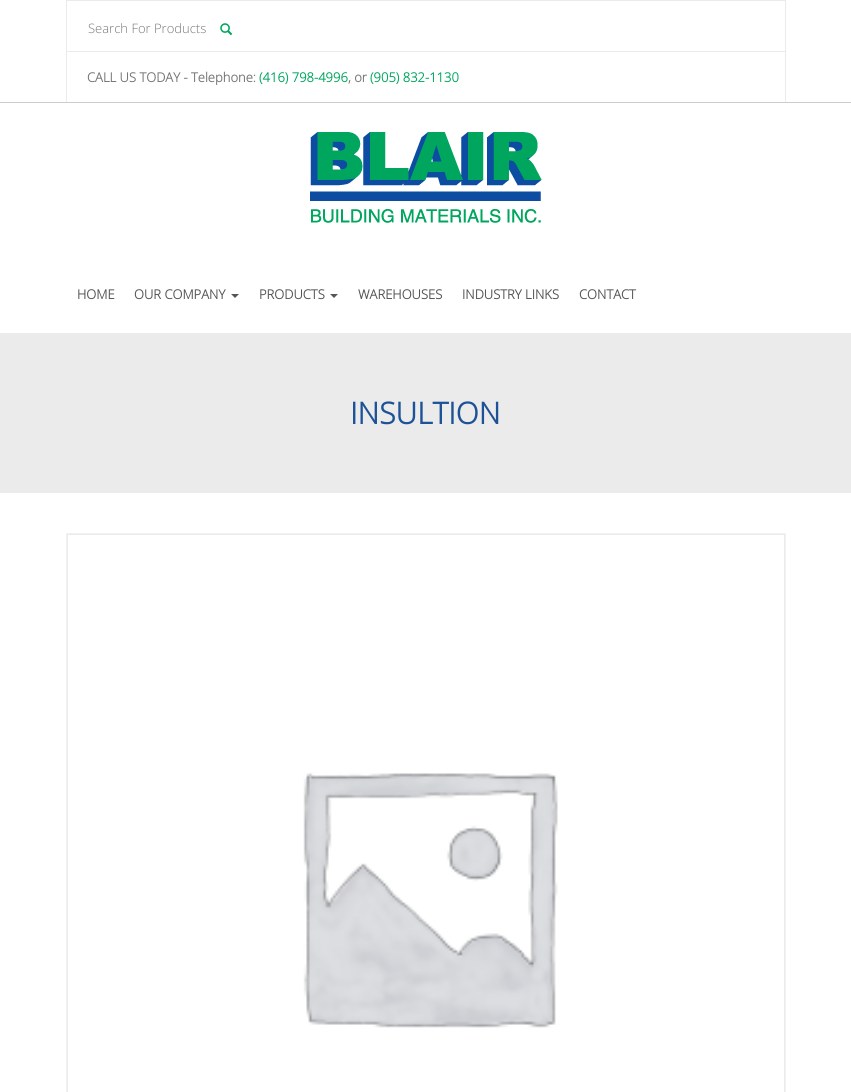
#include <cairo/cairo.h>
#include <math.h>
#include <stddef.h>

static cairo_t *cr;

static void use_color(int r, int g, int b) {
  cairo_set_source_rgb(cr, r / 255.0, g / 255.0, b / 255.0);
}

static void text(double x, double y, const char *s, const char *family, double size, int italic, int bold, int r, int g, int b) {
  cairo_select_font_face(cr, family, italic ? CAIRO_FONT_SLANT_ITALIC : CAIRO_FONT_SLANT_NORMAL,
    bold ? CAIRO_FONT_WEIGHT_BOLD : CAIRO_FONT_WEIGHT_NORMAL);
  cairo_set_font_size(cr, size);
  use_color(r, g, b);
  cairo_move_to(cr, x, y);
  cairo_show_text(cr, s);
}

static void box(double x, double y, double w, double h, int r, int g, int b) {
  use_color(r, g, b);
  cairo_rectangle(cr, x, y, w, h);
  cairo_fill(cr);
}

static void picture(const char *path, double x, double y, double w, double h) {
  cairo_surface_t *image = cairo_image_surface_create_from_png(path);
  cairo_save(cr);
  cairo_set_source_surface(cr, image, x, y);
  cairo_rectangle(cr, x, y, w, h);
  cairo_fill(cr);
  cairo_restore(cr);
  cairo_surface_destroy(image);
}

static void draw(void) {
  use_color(255, 255, 255);
  cairo_paint(cr);
  box(0, 102, 851, 1, 204, 204, 204);
  box(66, 0, 720, 1, 235, 235, 235);
  box(785, 0, 1, 51, 235, 235, 235);
  box(66, 0, 1, 51, 235, 235, 235);
  picture("img_01.png", 220, 23, 13, 13);
  box(66, 51, 720, 1, 235, 235, 235);
  box(785, 51, 1, 51, 235, 235, 235);
  box(66, 51, 1, 51, 235, 235, 235);
  picture("img_02.png", 310, 132, 232, 91);
  use_color(85, 85, 85);
  cairo_new_path(cr);
  cairo_move_to(cr, 231, 294);
  cairo_line_to(cr, 239, 294);
  cairo_line_to(cr, 235, 298);
  cairo_close_path(cr);
  cairo_fill(cr);
  cairo_new_path(cr);
  cairo_move_to(cr, 330, 294);
  cairo_line_to(cr, 338, 294);
  cairo_line_to(cr, 334, 298);
  cairo_close_path(cr);
  cairo_fill(cr);
  box(0, 333, 851, 160, 235, 235, 235);
  cairo_rectangle(cr, 66.5, 533.5, 719, 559);
  use_color(242, 242, 242);
  cairo_set_line_width(cr, 1);
  cairo_stroke(cr);
  cairo_rectangle(cr, 67.5, 534.5, 717, 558);
  use_color(235, 235, 235);
  cairo_stroke(cr);
  picture("img_03.png", 303, 773, 255, 255);
  text(88, 33, "Search For Products", "Open Sans Light", 13, 0, 0, 119, 119, 119);
  text(87, 82, "CALL US TODAY - Telephone:", "Open Sans", 13, 0, 1, 119, 119, 119);
  text(259, 82, "(416) 798-4996", "Open Sans", 13, 0, 1, 0, 166, 94);
  text(348, 82, ", or", "Open Sans", 13, 0, 1, 119, 119, 119);
  text(370, 82, "(905) 832-1130", "Open Sans", 13, 0, 1, 0, 166, 94);
  text(77, 299, "HOME", "Open Sans", 13, 0, 1, 85, 85, 85);
  text(134, 299, "OUR COMPANY", "Open Sans", 13, 0, 1, 85, 85, 85);
  text(259, 299, "PRODUCTS", "Open Sans", 13, 0, 1, 85, 85, 85);
  text(358, 299, "WAREHOUSES", "Open Sans", 13, 0, 1, 85, 85, 85);
  text(462, 299, "INDUSTRY LINKS", "Open Sans", 13, 0, 1, 85, 85, 85);
  text(579, 299, "CONTACT", "Open Sans", 13, 0, 1, 85, 85, 85);
  text(350, 424, "INSULTION", "Open Sans", 30, 0, 1, 29, 82, 150);
}

int main(void) {
  cairo_surface_t *surface = cairo_image_surface_create(CAIRO_FORMAT_RGB24, 851, 1092);
  cr = cairo_create(surface);
  cairo_font_options_t *options = cairo_font_options_create();
  cairo_font_options_set_hint_metrics(options, CAIRO_HINT_METRICS_OFF);
  cairo_font_options_set_hint_style(options, CAIRO_HINT_STYLE_NONE);
  cairo_set_font_options(cr, options);
  cairo_set_miter_limit(cr, 4);
  draw();
  cairo_surface_write_to_png(surface, "out.png");
  cairo_font_options_destroy(options);
  cairo_destroy(cr);
  cairo_surface_destroy(surface);
  return 0;
}
